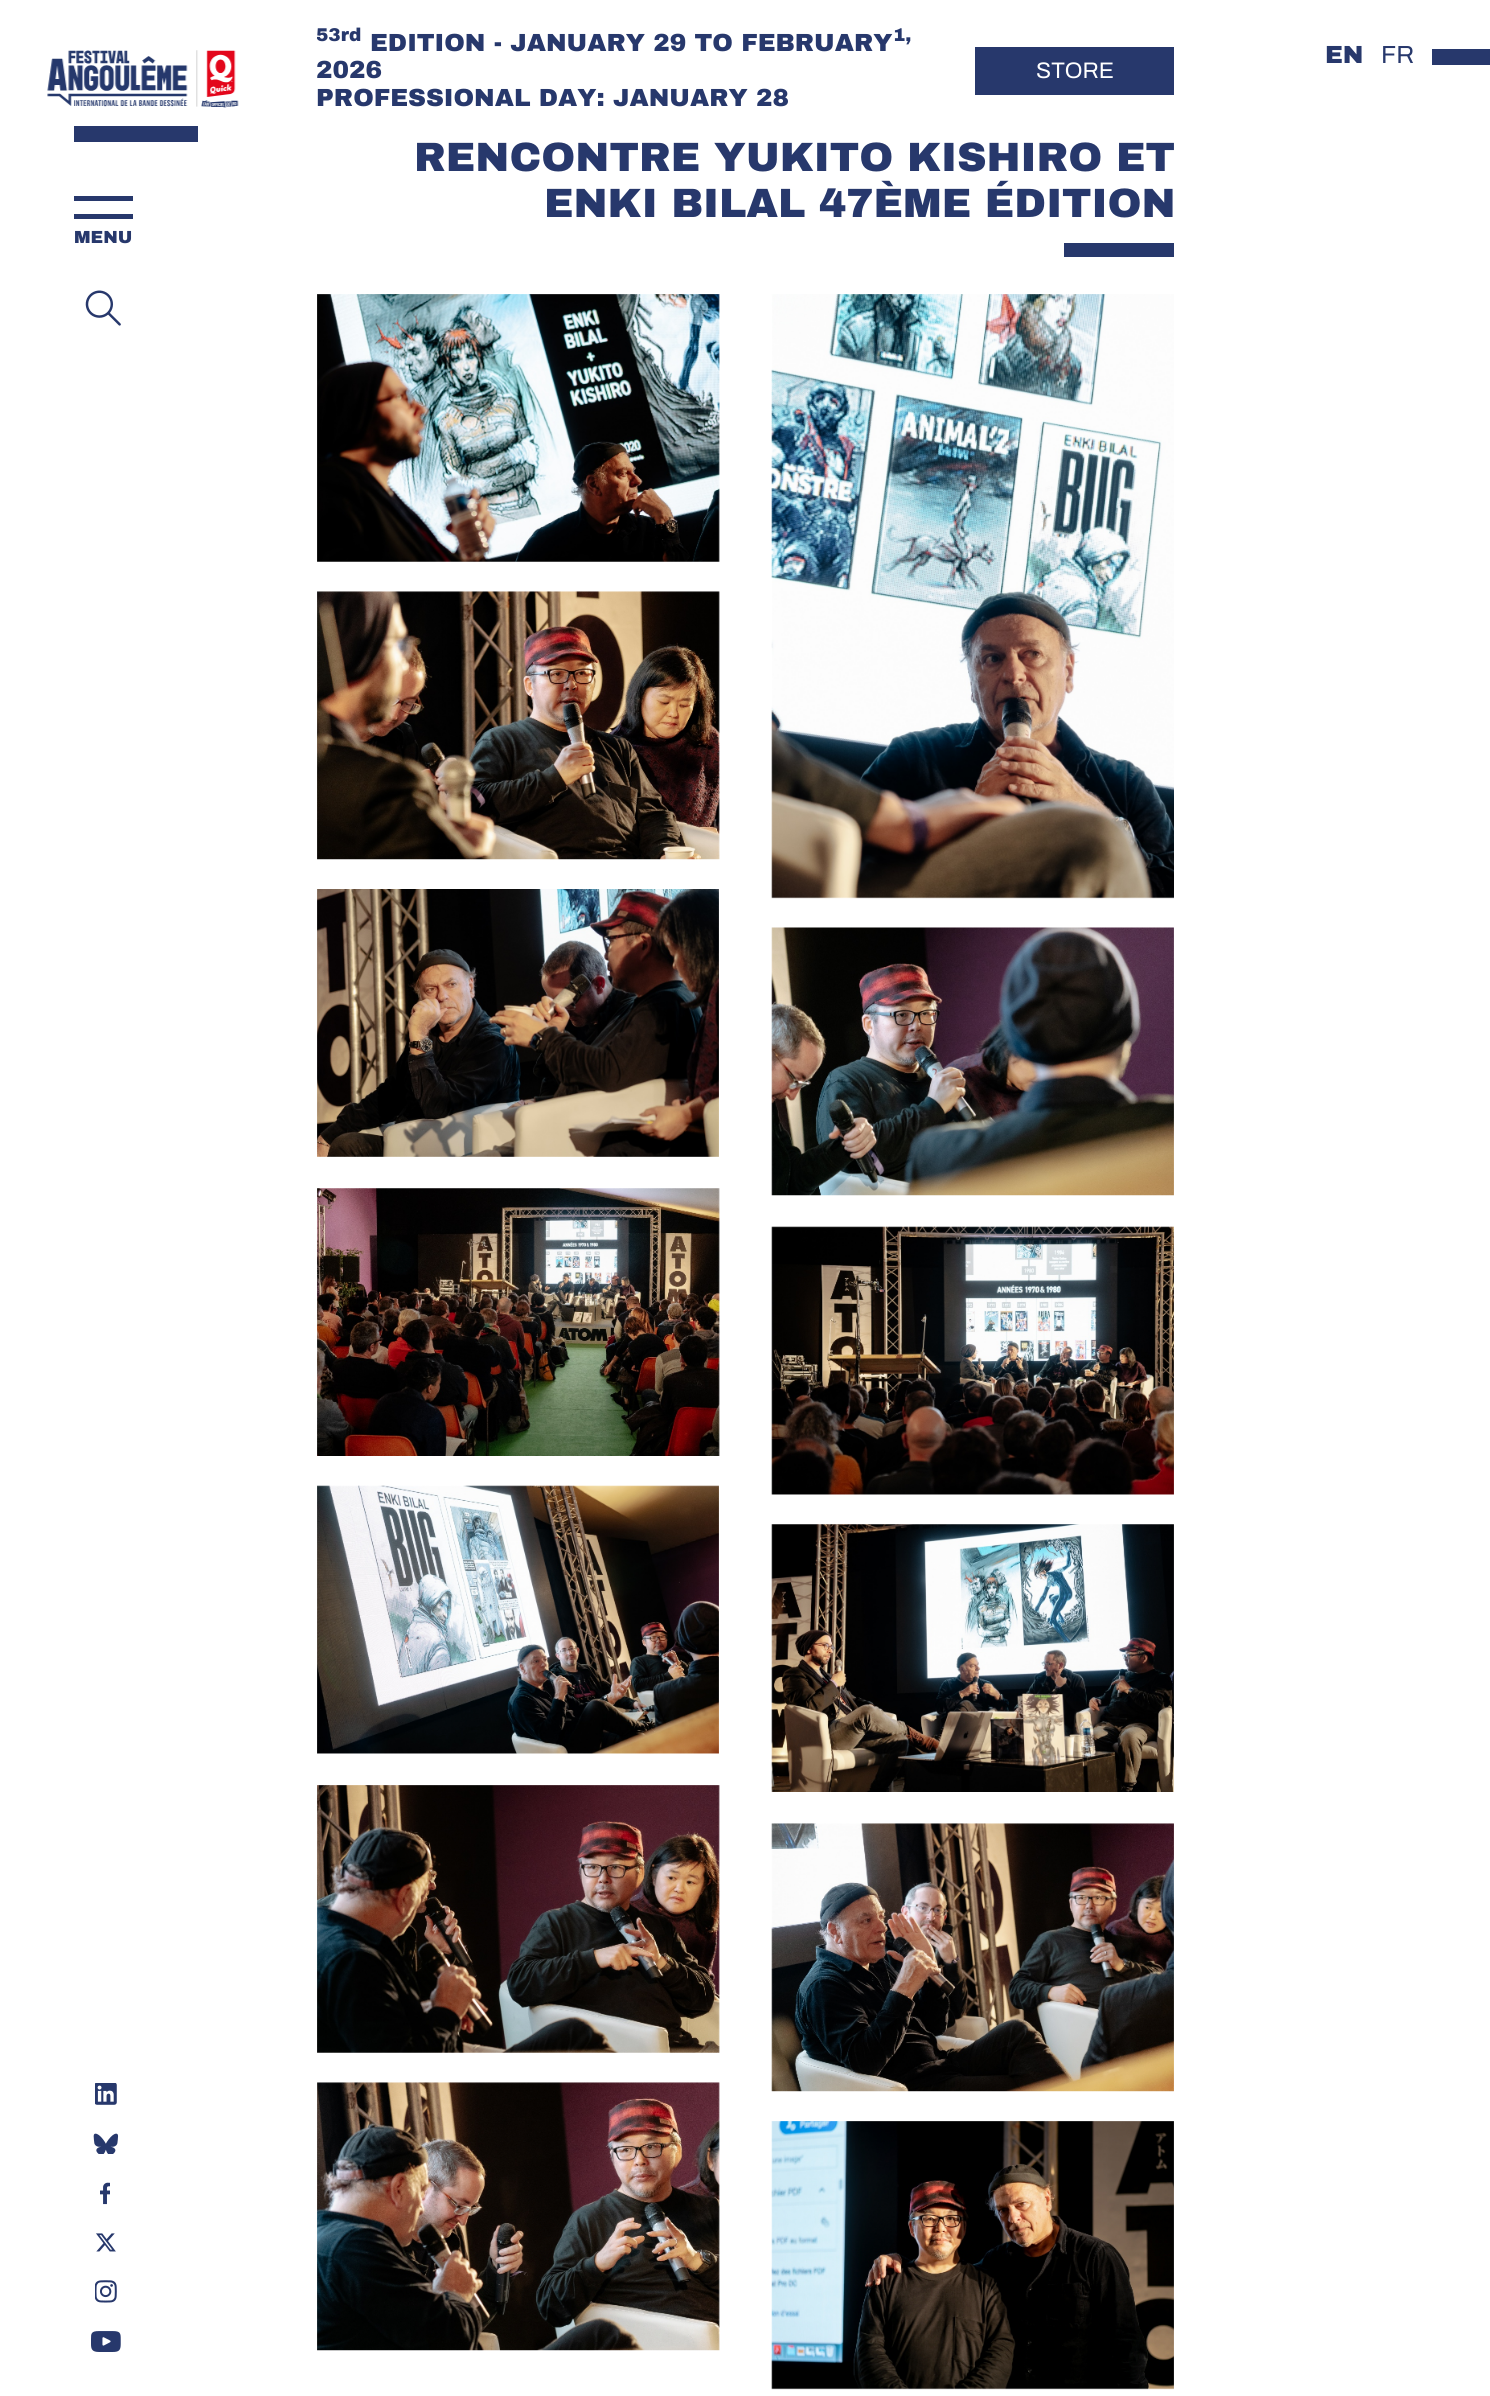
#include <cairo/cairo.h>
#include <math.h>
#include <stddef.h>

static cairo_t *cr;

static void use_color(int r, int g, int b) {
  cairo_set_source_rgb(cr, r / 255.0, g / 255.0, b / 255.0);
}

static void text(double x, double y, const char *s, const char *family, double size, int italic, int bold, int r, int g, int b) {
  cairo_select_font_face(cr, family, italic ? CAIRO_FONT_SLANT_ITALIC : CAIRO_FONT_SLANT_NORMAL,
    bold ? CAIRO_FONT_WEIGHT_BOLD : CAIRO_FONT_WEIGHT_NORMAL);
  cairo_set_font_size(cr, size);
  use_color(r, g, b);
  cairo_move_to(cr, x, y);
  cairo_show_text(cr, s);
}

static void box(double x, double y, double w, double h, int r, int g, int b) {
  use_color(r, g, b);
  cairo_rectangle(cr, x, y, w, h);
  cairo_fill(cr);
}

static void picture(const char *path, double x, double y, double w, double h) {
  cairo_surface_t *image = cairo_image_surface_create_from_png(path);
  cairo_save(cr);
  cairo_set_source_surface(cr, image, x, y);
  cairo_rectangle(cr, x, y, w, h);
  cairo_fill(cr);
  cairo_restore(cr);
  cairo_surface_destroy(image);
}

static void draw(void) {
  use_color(255, 255, 255);
  cairo_paint(cr);
  box(975, 47, 199, 48, 39, 56, 108);
  box(1432, 49, 58, 16, 39, 56, 108);
  box(1064, 243, 110, 14, 39, 56, 108);
  picture("img_01.png", 317, 294, 403, 268);
  picture("img_02.png", 771, 294, 403, 605);
  picture("img_03.png", 317, 591, 403, 269);
  picture("img_04.png", 317, 889, 402, 268);
  picture("img_05.png", 771, 927, 403, 269);
  picture("img_06.png", 317, 1188, 403, 268);
  picture("img_07.png", 771, 1226, 403, 269);
  picture("img_08.png", 317, 1485, 402, 269);
  picture("img_09.png", 771, 1524, 403, 268);
  picture("img_10.png", 317, 1785, 403, 268);
  picture("img_11.png", 771, 1823, 403, 269);
  picture("img_12.png", 317, 2082, 403, 269);
  picture("img_13.png", 771, 2121, 403, 269);
  picture("img_14.png", 47, 50, 192, 58);
  box(74, 126, 124, 16, 39, 56, 108);
  box(74, 196, 59, 5, 39, 56, 108);
  box(74, 214, 59, 5, 39, 56, 108);
  picture("img_15.png", 85, 290, 36, 36);
  picture("img_16.png", 95, 2083, 22, 22);
  picture("img_17.png", 93, 2133, 26, 21);
  picture("img_18.png", 100, 2182, 10, 23);
  picture("img_19.png", 96, 2233, 20, 19);
  picture("img_20.png", 95, 2280, 22, 23);
  picture("img_21.png", 91, 2331, 30, 21);
  text(316, 41, "53rd", "Archivo Black Black", 18.5, 0, 0, 39, 56, 108);
  text(370, 51, "EDITION - JANUARY 29 TO FEBRUARY", "Archivo Black Black", 24.75, 0, 0, 39, 56, 108);
  text(893, 41, "1,", "Archivo Black Black", 18.5, 0, 0, 39, 56, 108);
  text(316, 78, "2026", "Archivo Black Black", 24.75, 0, 0, 39, 56, 108);
  text(316, 106, "PROFESSIONAL DAY: JANUARY 28", "Archivo Black Black", 24.75, 0, 0, 39, 56, 108);
  text(1036, 78, "STORE", "Archivo", 22.5, 0, 0, 255, 255, 255);
  text(1325, 63, "EN", "Archivo Black Black", 24.75, 0, 0, 39, 56, 108);
  text(1381, 63, "FR", "Archivo", 24.75, 0, 0, 39, 56, 108);
  text(414, 171, "RENCONTRE YUKITO KISHIRO ET", "Archivo Black Black", 40.9, 0, 0, 39, 56, 108);
  box(1174, 142, 1, 9, 255, 255, 255);
  text(544, 217, "ENKI BILAL 47ÈME ÉDITION", "Archivo Black Black", 40.9, 0, 0, 39, 56, 108);
  box(316, 36, 1, 2, 255, 255, 255);
  text(74, 243, "MENU", "Archivo Black Black", 17.5, 0, 0, 39, 56, 108);
}

int main(void) {
  cairo_surface_t *surface = cairo_image_surface_create(CAIRO_FORMAT_RGB24, 1490, 2396);
  cr = cairo_create(surface);
  cairo_font_options_t *options = cairo_font_options_create();
  cairo_font_options_set_hint_metrics(options, CAIRO_HINT_METRICS_OFF);
  cairo_font_options_set_hint_style(options, CAIRO_HINT_STYLE_NONE);
  cairo_set_font_options(cr, options);
  cairo_set_miter_limit(cr, 4);
  draw();
  cairo_surface_write_to_png(surface, "out.png");
  cairo_font_options_destroy(options);
  cairo_destroy(cr);
  cairo_surface_destroy(surface);
  return 0;
}
